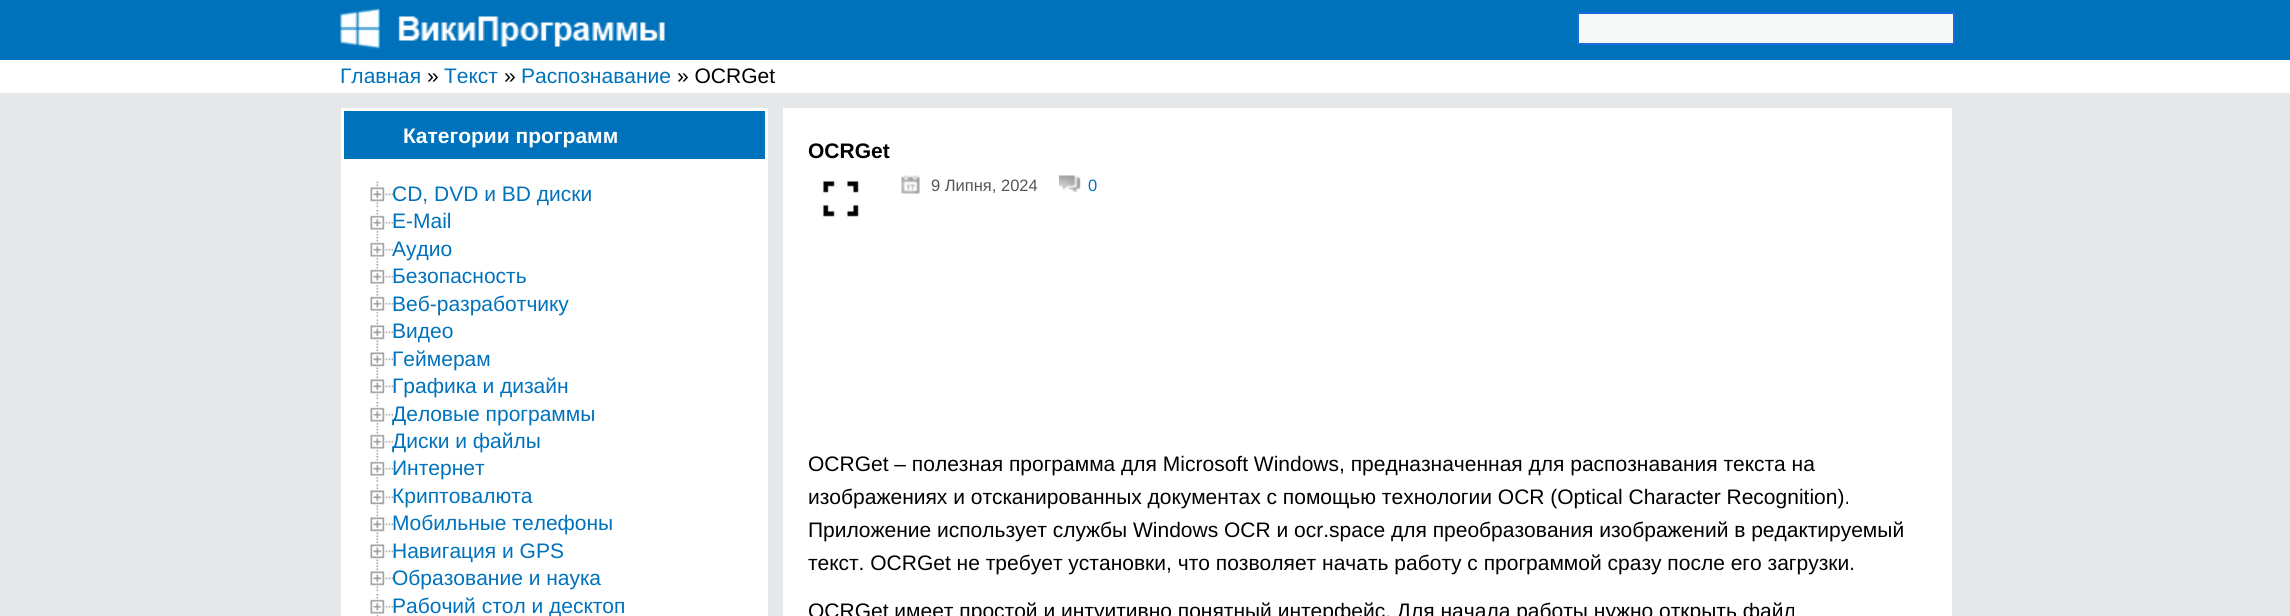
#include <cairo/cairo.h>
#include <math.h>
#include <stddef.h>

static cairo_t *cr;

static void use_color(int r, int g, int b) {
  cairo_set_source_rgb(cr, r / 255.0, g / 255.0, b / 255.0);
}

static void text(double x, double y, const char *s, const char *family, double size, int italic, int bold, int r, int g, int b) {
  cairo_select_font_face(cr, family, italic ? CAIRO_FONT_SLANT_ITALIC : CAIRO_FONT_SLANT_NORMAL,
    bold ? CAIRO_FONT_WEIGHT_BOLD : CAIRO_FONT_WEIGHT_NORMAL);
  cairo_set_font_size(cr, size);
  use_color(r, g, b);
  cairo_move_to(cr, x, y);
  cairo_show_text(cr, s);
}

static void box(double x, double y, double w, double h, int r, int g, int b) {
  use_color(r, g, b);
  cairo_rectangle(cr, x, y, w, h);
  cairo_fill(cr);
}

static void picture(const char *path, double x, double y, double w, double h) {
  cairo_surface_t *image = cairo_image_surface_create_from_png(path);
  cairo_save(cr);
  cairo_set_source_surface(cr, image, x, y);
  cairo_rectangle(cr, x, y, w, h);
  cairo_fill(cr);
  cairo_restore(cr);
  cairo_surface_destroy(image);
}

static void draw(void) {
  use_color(230, 231, 233);
  cairo_paint(cr);
  box(0, 0, 2290, 60, 0, 114, 188);
  picture("img_01.png", 340, 8, 325, 41);
  use_color(247, 249, 249);
  cairo_rectangle(cr, 1578, 13, 376, 31);
  cairo_fill_preserve(cr);
  use_color(26, 108, 219);
  cairo_stroke(cr);
  box(0, 60, 2290, 33, 255, 255, 255);
  box(341, 108, 427, 508, 255, 255, 255);
  box(344, 111, 421, 48, 0, 114, 188);
  picture("img_02.png", 370, 181, 23, 27);
  picture("img_03.png", 370, 210, 23, 26);
  picture("img_03.png", 370, 237, 23, 26);
  picture("img_03.png", 370, 264, 23, 26);
  picture("img_03.png", 370, 291, 23, 26);
  picture("img_02.png", 370, 319, 23, 27);
  picture("img_02.png", 370, 346, 23, 27);
  picture("img_02.png", 370, 373, 23, 27);
  picture("img_03.png", 370, 402, 23, 26);
  picture("img_03.png", 370, 429, 23, 26);
  picture("img_03.png", 370, 456, 23, 26);
  picture("img_02.png", 370, 484, 23, 27);
  picture("img_02.png", 370, 511, 23, 27);
  picture("img_02.png", 370, 538, 23, 27);
  picture("img_02.png", 370, 565, 23, 27);
  picture("img_04.png", 370, 594, 23, 22);
  box(783, 108, 1169, 508, 255, 255, 255);
  picture("img_05.png", 822, 180, 38, 38);
  picture("img_06.png", 901, 175, 19, 19);
  picture("img_07.png", 1059, 175, 22, 17);
  text(340, 83, "Главная", "Liberation Sans", 21, 0, 0, 0, 114, 188);
  text(427, 83, "»", "Liberation Sans", 21, 0, 0, 0, 0, 0);
  text(444, 83, "Текст", "Liberation Sans", 21, 0, 0, 0, 114, 188);
  text(504, 83, "»", "Liberation Sans", 21, 0, 0, 0, 0, 0);
  text(521, 83, "Распознавание", "Liberation Sans", 21, 0, 0, 0, 114, 188);
  text(677, 83, "» OCRGet", "Liberation Sans", 21, 0, 0, 0, 0, 0);
  text(403, 143, "Категории программ", "Liberation Sans", 21, 0, 1, 255, 255, 255);
  text(392, 201, "CD, DVD и BD диски", "Liberation Sans", 21, 0, 0, 0, 114, 188);
  text(392, 228, "E-Mail", "Liberation Sans", 21, 0, 0, 0, 114, 188);
  text(392, 256, "Аудио", "Liberation Sans", 21, 0, 0, 0, 114, 188);
  text(392, 283, "Безопасность", "Liberation Sans", 21, 0, 0, 0, 114, 188);
  text(392, 311, "Веб-разработчику", "Liberation Sans", 21, 0, 0, 0, 114, 188);
  text(392, 338, "Видео", "Liberation Sans", 21, 0, 0, 0, 114, 188);
  text(392, 366, "Геймерам", "Liberation Sans", 21, 0, 0, 0, 114, 188);
  text(392, 393, "Графика и дизайн", "Liberation Sans", 21, 0, 0, 0, 114, 188);
  text(392, 421, "Деловые программы", "Liberation Sans", 21, 0, 0, 0, 114, 188);
  text(392, 448, "Диски и файлы", "Liberation Sans", 21, 0, 0, 0, 114, 188);
  text(392, 475, "Интернет", "Liberation Sans", 21, 0, 0, 0, 114, 188);
  text(392, 503, "Криптовалюта", "Liberation Sans", 21, 0, 0, 0, 114, 188);
  text(392, 530, "Мобильные телефоны", "Liberation Sans", 21, 0, 0, 0, 114, 188);
  text(392, 558, "Навигация и GPS", "Liberation Sans", 21, 0, 0, 0, 114, 188);
  text(392, 585, "Образование и наука", "Liberation Sans", 21, 0, 0, 0, 114, 188);
  text(392, 613, "Рабочий стол и десктоп", "Liberation Sans", 21, 0, 0, 0, 114, 188);
  text(808, 158, "OCRGet", "Liberation Sans", 21, 0, 1, 0, 0, 0);
  text(931, 191, "9 Липня, 2024", "Liberation Sans", 16.5, 0, 0, 85, 85, 85);
  text(1088, 191, "0", "Liberation Sans", 16.5, 0, 0, 0, 114, 188);
  text(808, 471, "OCRGet – полезная программа для Microsoft Windows, предназначенная для распознавания текста на", "Liberation Sans", 21, 0, 0, 0, 0, 0);
  text(808, 504, "изображениях и отсканированных документах с помощью технологии OCR (Optical Character Recognition).", "Liberation Sans", 21, 0, 0, 0, 0, 0);
  text(808, 537, "Приложение использует службы Windows OCR и ocr.space для преобразования изображений в редактируемый", "Liberation Sans", 21, 0, 0, 0, 0, 0);
  text(808, 570, "текст. OCRGet не требует установки, что позволяет начать работу с программой сразу после его загрузки.", "Liberation Sans", 21, 0, 0, 0, 0, 0);
  text(808, 618, "OCRGet имеет простой и интуитивно понятный интерфейс. Для начала работы нужно открыть файл", "Liberation Sans", 21, 0, 0, 0, 0, 0);
}

int main(void) {
  cairo_surface_t *surface = cairo_image_surface_create(CAIRO_FORMAT_RGB24, 2290, 616);
  cr = cairo_create(surface);
  cairo_font_options_t *options = cairo_font_options_create();
  cairo_font_options_set_hint_metrics(options, CAIRO_HINT_METRICS_OFF);
  cairo_font_options_set_hint_style(options, CAIRO_HINT_STYLE_NONE);
  cairo_set_font_options(cr, options);
  cairo_set_miter_limit(cr, 4);
  draw();
  cairo_surface_write_to_png(surface, "out.png");
  cairo_font_options_destroy(options);
  cairo_destroy(cr);
  cairo_surface_destroy(surface);
  return 0;
}
